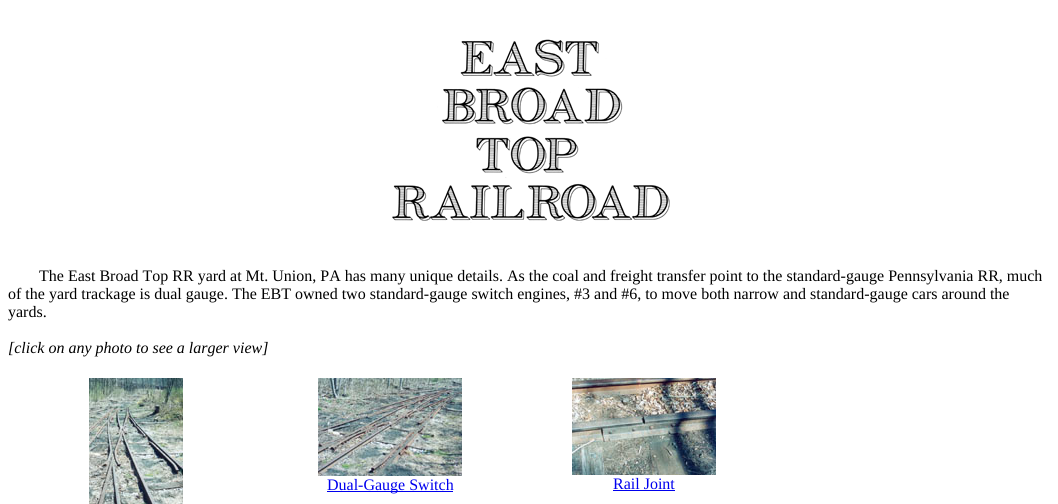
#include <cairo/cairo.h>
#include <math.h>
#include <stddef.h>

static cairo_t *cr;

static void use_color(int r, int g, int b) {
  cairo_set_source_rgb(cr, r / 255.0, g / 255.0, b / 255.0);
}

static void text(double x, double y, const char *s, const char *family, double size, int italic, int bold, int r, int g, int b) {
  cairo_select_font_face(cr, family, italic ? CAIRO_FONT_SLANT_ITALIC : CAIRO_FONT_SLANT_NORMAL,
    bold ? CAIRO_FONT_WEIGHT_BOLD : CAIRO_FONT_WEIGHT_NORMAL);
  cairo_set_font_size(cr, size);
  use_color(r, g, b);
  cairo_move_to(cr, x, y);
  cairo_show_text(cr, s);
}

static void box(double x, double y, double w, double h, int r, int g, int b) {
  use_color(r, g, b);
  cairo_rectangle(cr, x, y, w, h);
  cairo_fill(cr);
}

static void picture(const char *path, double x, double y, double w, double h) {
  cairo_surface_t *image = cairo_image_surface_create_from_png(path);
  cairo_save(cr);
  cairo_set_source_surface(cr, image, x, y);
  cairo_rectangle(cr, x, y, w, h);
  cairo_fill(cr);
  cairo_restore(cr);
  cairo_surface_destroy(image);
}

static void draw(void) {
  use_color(255, 255, 255);
  cairo_paint(cr);
  picture("img_01.png", 392, 39, 278, 184);
  picture("img_02.png", 89, 378, 94, 126);
  picture("img_03.png", 318, 378, 144, 98);
  box(327, 491, 126, 1, 0, 0, 238);
  picture("img_04.png", 572, 378, 144, 97);
  box(613, 490, 62, 1, 0, 0, 238);
  text(39, 281, "The East Broad Top RR yard at Mt. Union, PA has many unique details. As the coal and freight transfer point to the standard-gauge Pennsylvania RR, much", "Liberation Serif", 16, 0, 0, 0, 0, 0);
  text(8, 299, "of the yard trackage is dual gauge. The EBT owned two standard-gauge switch engines, #3 and #6, to move both narrow and standard-gauge cars around the", "Liberation Serif", 16, 0, 0, 0, 0, 0);
  text(8, 317, "yards.", "Liberation Serif", 16, 0, 0, 0, 0, 0);
  text(8, 353, "[click on any photo to see a larger view]", "Liberation Serif", 16, 1, 0, 0, 0, 0);
  text(327, 490, "Dual-Gauge Switch", "Liberation Serif", 16, 0, 0, 0, 0, 238);
  text(613, 489, "Rail Joint", "Liberation Serif", 16, 0, 0, 0, 0, 238);
}

int main(void) {
  cairo_surface_t *surface = cairo_image_surface_create(CAIRO_FORMAT_RGB24, 1058, 504);
  cr = cairo_create(surface);
  cairo_font_options_t *options = cairo_font_options_create();
  cairo_font_options_set_hint_metrics(options, CAIRO_HINT_METRICS_OFF);
  cairo_font_options_set_hint_style(options, CAIRO_HINT_STYLE_NONE);
  cairo_set_font_options(cr, options);
  cairo_set_miter_limit(cr, 4);
  draw();
  cairo_surface_write_to_png(surface, "out.png");
  cairo_font_options_destroy(options);
  cairo_destroy(cr);
  cairo_surface_destroy(surface);
  return 0;
}
